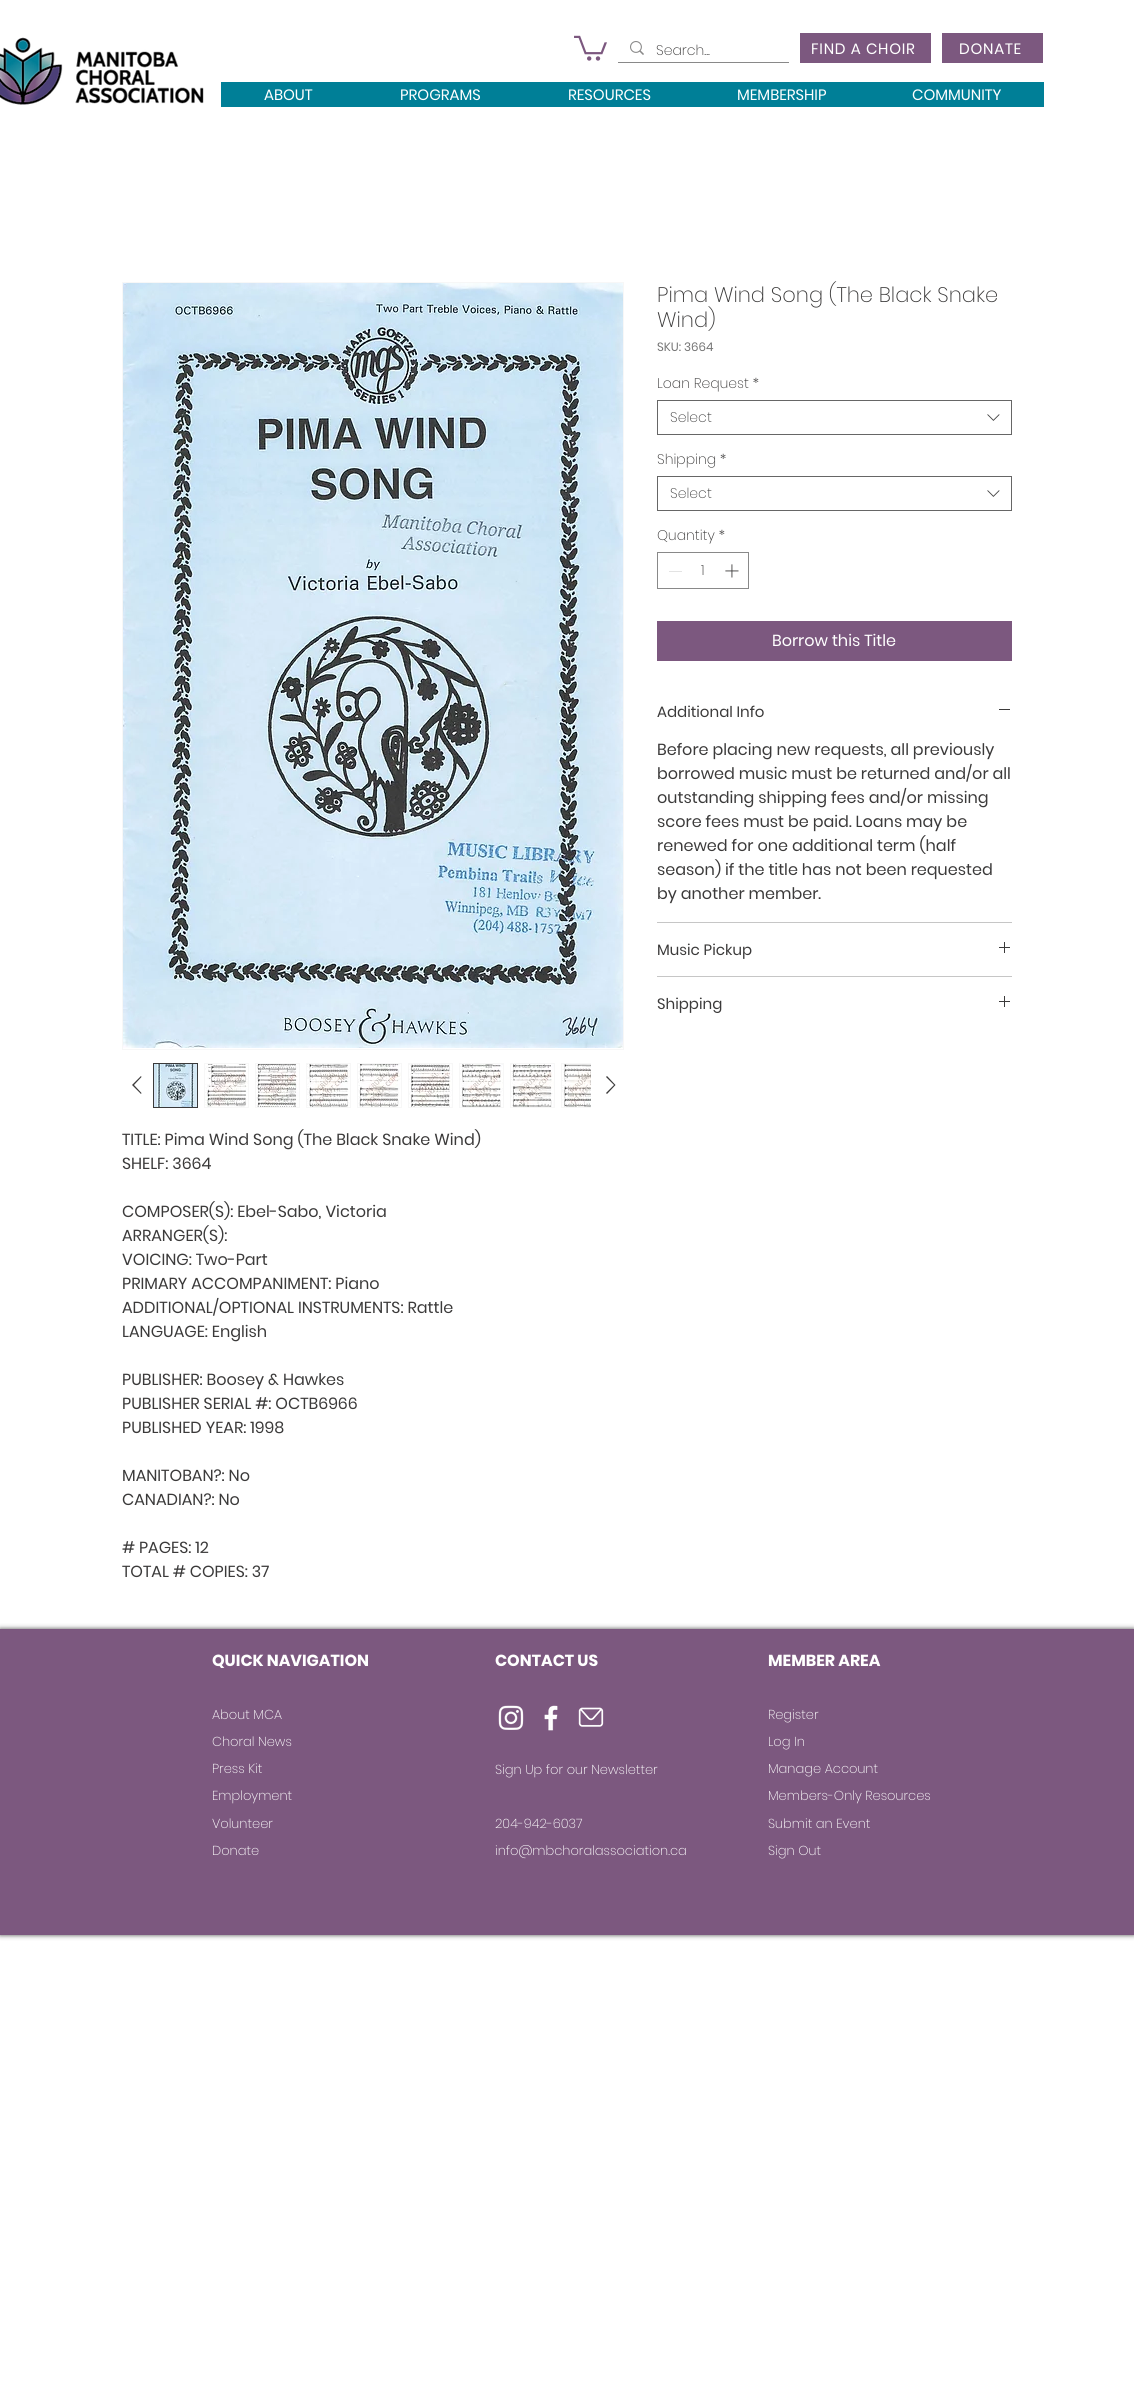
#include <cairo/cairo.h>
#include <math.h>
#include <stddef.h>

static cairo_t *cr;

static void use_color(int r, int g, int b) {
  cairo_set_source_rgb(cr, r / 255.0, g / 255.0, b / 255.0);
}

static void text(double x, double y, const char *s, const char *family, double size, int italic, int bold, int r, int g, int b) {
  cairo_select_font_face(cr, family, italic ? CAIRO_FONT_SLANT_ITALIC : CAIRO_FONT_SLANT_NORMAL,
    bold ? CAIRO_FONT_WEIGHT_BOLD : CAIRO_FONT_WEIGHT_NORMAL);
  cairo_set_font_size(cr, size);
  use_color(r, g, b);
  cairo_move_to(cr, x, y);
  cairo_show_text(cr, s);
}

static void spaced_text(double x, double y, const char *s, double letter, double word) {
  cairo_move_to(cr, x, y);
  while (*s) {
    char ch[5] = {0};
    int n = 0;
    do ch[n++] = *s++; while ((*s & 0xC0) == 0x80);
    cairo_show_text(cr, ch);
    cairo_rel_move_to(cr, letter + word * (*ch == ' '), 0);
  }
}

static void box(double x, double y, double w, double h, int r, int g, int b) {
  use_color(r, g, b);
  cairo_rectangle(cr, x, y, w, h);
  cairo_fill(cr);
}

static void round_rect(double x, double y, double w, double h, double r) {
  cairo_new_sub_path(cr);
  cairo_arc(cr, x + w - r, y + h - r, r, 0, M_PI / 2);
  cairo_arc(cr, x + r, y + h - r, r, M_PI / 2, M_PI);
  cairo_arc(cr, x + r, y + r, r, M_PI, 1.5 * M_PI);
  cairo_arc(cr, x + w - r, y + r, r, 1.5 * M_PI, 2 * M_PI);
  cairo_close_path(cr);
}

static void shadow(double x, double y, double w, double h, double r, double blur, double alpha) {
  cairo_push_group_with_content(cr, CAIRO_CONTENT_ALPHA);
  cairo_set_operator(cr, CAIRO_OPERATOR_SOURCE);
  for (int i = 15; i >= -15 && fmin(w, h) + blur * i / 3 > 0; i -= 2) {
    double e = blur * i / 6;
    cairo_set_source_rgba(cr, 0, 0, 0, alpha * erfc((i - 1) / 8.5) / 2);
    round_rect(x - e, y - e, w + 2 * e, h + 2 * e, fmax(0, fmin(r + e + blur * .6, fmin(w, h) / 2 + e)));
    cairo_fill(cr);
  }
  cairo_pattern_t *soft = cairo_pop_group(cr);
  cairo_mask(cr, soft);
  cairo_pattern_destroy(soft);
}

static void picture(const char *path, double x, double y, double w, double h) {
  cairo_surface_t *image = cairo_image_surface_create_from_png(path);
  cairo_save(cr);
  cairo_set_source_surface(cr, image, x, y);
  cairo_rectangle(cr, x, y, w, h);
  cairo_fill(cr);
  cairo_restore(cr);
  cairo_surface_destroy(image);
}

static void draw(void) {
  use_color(255, 255, 255);
  cairo_paint(cr);
  picture("img_01.png", 0, 37, 204, 68);
  picture("img_02.png", 574, 35, 33, 26);
  box(618, 62, 171, 1, 137, 137, 137);
  picture("img_03.png", 630, 41, 14, 14);
  box(800, 33, 131, 30, 124, 88, 127);
  box(942, 33, 101, 30, 124, 88, 127);
  box(221, 82, 823, 25, 0, 127, 151);
  cairo_rectangle(cr, 657.5, 400.5, 354, 34);
  use_color(102, 102, 102);
  cairo_set_line_width(cr, 1);
  cairo_stroke(cr);
  picture("img_04.png", 987, 414, 13, 7);
  cairo_rectangle(cr, 657.5, 476.5, 354, 34);
  cairo_stroke(cr);
  picture("img_04.png", 987, 490, 13, 7);
  cairo_rectangle(cr, 657.5, 552.5, 91, 36);
  use_color(137, 137, 137);
  cairo_stroke(cr);
  box(669, 571, 13, 1, 227, 227, 227);
  picture("img_05.png", 725, 564, 14, 14);
  box(657, 621, 355, 40, 124, 88, 127);
  box(657, 922, 355, 1, 198, 198, 198);
  box(999, 709, 11, 1, 59, 58, 58);
  box(657, 976, 355, 1, 198, 198, 198);
  picture("img_06.png", 999, 942, 11, 11);
  picture("img_06.png", 999, 996, 11, 11);
  cairo_rectangle(cr, 122.5, 282.5, 501, 767);
  use_color(247, 247, 247);
  cairo_stroke(cr);
  picture("img_07.png", 123, 283, 500, 765);
  use_color(59, 58, 58);
  cairo_set_fill_rule(cr, CAIRO_FILL_RULE_EVEN_ODD);
  cairo_new_path(cr);
  cairo_move_to(cr, 141, 1076);
  cairo_line_to(cr, 141.5, 1077);
  cairo_line_to(cr, 134, 1085);
  cairo_line_to(cr, 141.5, 1093);
  cairo_line_to(cr, 141, 1094);
  cairo_line_to(cr, 132, 1085);
  cairo_close_path(cr);
  cairo_fill(cr);
  cairo_rectangle(cr, 153.5, 1063.5, 44, 44);
  cairo_stroke(cr);
  picture("img_08.png", 154, 1064, 43, 43);
  box(204, 1063, 45, 45, 247, 247, 247);
  picture("img_09.png", 205, 1064, 43, 43);
  box(255, 1063, 45, 45, 247, 247, 247);
  picture("img_10.png", 256, 1064, 43, 43);
  box(306, 1063, 45, 45, 247, 247, 247);
  picture("img_11.png", 307, 1064, 43, 43);
  box(357, 1063, 45, 45, 247, 247, 247);
  picture("img_12.png", 358, 1064, 43, 43);
  box(408, 1063, 45, 45, 247, 247, 247);
  picture("img_13.png", 409, 1064, 43, 43);
  box(459, 1063, 45, 45, 247, 247, 247);
  picture("img_14.png", 460, 1064, 43, 43);
  box(510, 1063, 45, 45, 247, 247, 247);
  picture("img_15.png", 511, 1064, 43, 43);
  box(561, 1063, 30, 45, 247, 247, 247);
  picture("img_16.png", 562, 1064, 29, 43);
  use_color(59, 58, 58);
  cairo_new_path(cr);
  cairo_move_to(cr, 607, 1076);
  cairo_line_to(cr, 615.5, 1085);
  cairo_line_to(cr, 607, 1094);
  cairo_line_to(cr, 606, 1093);
  cairo_line_to(cr, 614, 1085);
  cairo_line_to(cr, 606, 1077);
  cairo_close_path(cr);
  cairo_fill(cr);
  use_color(0, 0, 0);
  shadow(0, 1629, 1134, 306, 0, 2.5, 0.7);
  box(0, 1629, 1134, 306, 124, 88, 127);
  picture("img_17.png", 498, 1705, 26, 25);
  picture("img_18.png", 544, 1705, 14, 26);
  picture("img_19.png", 578, 1707, 26, 20);
  text(656, 55, "Search...", "Poppins ExtraLight", 14, 0, 0, 59, 58, 58);
  cairo_select_font_face(cr, "Poppins", CAIRO_FONT_SLANT_NORMAL, CAIRO_FONT_WEIGHT_NORMAL);
  cairo_set_font_size(cr, 15);
  use_color(255, 255, 255);
  spaced_text(811, 54, "FIND A CHOIR", 0.75, 0);
  spaced_text(959, 54, "DONATE", 0.75, 0);
  text(264, 100, "ABOUT", "Poppins", 15, 0, 0, 255, 255, 255);
  text(400, 100, "PROGRAMS", "Poppins", 15, 0, 0, 255, 255, 255);
  text(568, 100, "RESOURCES", "Poppins", 15, 0, 0, 255, 255, 255);
  text(737, 100, "MEMBERSHIP", "Poppins", 15, 0, 0, 255, 255, 255);
  text(912, 100, "COMMUNITY", "Poppins", 15, 0, 0, 255, 255, 255);
  text(657, 302, "Pima Wind Song (The Black Snake", "Poppins ExtraLight", 21, 0, 0, 59, 58, 58);
  text(657, 327, "Wind)", "Poppins ExtraLight", 21, 0, 0, 59, 58, 58);
  text(657, 351, "SKU: 3664", "Poppins", 12, 0, 0, 117, 117, 117);
  text(657, 388, "Loan Request *", "Poppins ExtraLight", 14, 0, 0, 59, 58, 58);
  text(670, 422, "Select", "Poppins ExtraLight", 14, 0, 0, 68, 68, 68);
  text(657, 464, "Shipping *", "Poppins ExtraLight", 14, 0, 0, 59, 58, 58);
  text(670, 498, "Select", "Poppins ExtraLight", 14, 0, 0, 68, 68, 68);
  text(657, 540, "Quantity *", "Poppins ExtraLight", 14, 0, 0, 59, 58, 58);
  text(701, 575, "1", "Poppins ExtraLight", 14, 0, 0, 59, 58, 58);
  text(772, 646, "Borrow this Title", "Poppins", 16, 0, 0, 255, 255, 255);
  text(657, 717, "Additional Info", "Poppins", 15, 0, 0, 59, 58, 58);
  text(657, 755, "Before placing new requests, all previously", "Poppins", 16, 0, 0, 59, 58, 58);
  text(657, 779, "borrowed music must be returned and/or all", "Poppins", 16, 0, 0, 59, 58, 58);
  text(657, 803, "outstanding shipping fees and/or missing", "Poppins", 16, 0, 0, 59, 58, 58);
  text(657, 827, "score fees must be paid. Loans may be", "Poppins", 16, 0, 0, 59, 58, 58);
  text(657, 851, "renewed for one additional term (half", "Poppins", 16, 0, 0, 59, 58, 58);
  text(657, 875, "season) if the title has not been requested", "Poppins", 16, 0, 0, 59, 58, 58);
  text(657, 899, "by another member.", "Poppins", 16, 0, 0, 59, 58, 58);
  text(657, 955, "Music Pickup", "Poppins", 15, 0, 0, 59, 58, 58);
  text(657, 1009, "Shipping", "Poppins", 15, 0, 0, 59, 58, 58);
  text(122, 1145, "TITLE: Pima Wind Song (The Black Snake Wind)", "Poppins", 16, 0, 0, 59, 58, 58);
  text(122, 1169, "SHELF: 3664", "Poppins", 16, 0, 0, 59, 58, 58);
  text(122, 1217, "COMPOSER(S): Ebel-Sabo, Victoria", "Poppins", 16, 0, 0, 59, 58, 58);
  text(122, 1241, "ARRANGER(S):", "Poppins", 16, 0, 0, 59, 58, 58);
  text(122, 1265, "VOICING: Two-Part", "Poppins", 16, 0, 0, 59, 58, 58);
  text(122, 1289, "PRIMARY ACCOMPANIMENT: Piano", "Poppins", 16, 0, 0, 59, 58, 58);
  text(122, 1313, "ADDITIONAL/OPTIONAL INSTRUMENTS: Rattle", "Poppins", 16, 0, 0, 59, 58, 58);
  text(122, 1337, "LANGUAGE: English", "Poppins", 16, 0, 0, 59, 58, 58);
  text(122, 1385, "PUBLISHER: Boosey & Hawkes", "Poppins", 16, 0, 0, 59, 58, 58);
  text(122, 1409, "PUBLISHER SERIAL #: OCTB6966", "Poppins", 16, 0, 0, 59, 58, 58);
  text(122, 1433, "PUBLISHED YEAR: 1998", "Poppins", 16, 0, 0, 59, 58, 58);
  text(122, 1481, "MANITOBAN?: No", "Poppins", 16, 0, 0, 59, 58, 58);
  text(122, 1505, "CANADIAN?: No", "Poppins", 16, 0, 0, 59, 58, 58);
  text(122, 1553, "# PAGES: 12", "Poppins", 16, 0, 0, 59, 58, 58);
  text(122, 1577, "TOTAL # COPIES: 37", "Poppins", 16, 0, 0, 59, 58, 58);
  text(212, 1666, "QUICK NAVIGATION", "Poppins", 16, 0, 1, 255, 255, 255);
  text(495, 1666, "CONTACT US", "Poppins", 16, 0, 1, 255, 255, 255);
  text(768, 1666, "MEMBER AREA", "Poppins", 16, 0, 1, 255, 255, 255);
  text(212, 1719, "About MCA", "Poppins ExtraLight", 13, 0, 0, 255, 255, 255);
  text(212, 1746, "Choral News", "Poppins ExtraLight", 13, 0, 0, 255, 255, 255);
  text(212, 1773, "Press Kit", "Poppins ExtraLight", 13, 0, 0, 255, 255, 255);
  text(212, 1800, "Employment", "Poppins ExtraLight", 13, 0, 0, 255, 255, 255);
  text(212, 1828, "Volunteer", "Poppins ExtraLight", 13, 0, 0, 255, 255, 255);
  text(212, 1855, "Donate", "Poppins ExtraLight", 13, 0, 0, 255, 255, 255);
  text(768, 1719, "Register", "Poppins ExtraLight", 13, 0, 0, 255, 255, 255);
  text(768, 1746, "Log In", "Poppins ExtraLight", 13, 0, 0, 255, 255, 255);
  text(768, 1773, "Manage Account", "Poppins ExtraLight", 13, 0, 0, 255, 255, 255);
  text(768, 1800, "Members-Only Resources", "Poppins ExtraLight", 13, 0, 0, 255, 255, 255);
  text(768, 1828, "Submit an Event", "Poppins ExtraLight", 13, 0, 0, 255, 255, 255);
  text(768, 1855, "Sign Out", "Poppins ExtraLight", 13, 0, 0, 255, 255, 255);
  text(495, 1774, "Sign Up for our Newsletter", "Poppins ExtraLight", 13, 0, 0, 255, 255, 255);
  text(495, 1828, "204-942-6037", "Poppins ExtraLight", 13, 0, 0, 255, 255, 255);
  text(495, 1855, "info@mbchoralassociation.ca", "Poppins ExtraLight", 13, 0, 0, 255, 255, 255);
}

int main(void) {
  cairo_surface_t *surface = cairo_image_surface_create(CAIRO_FORMAT_RGB24, 1134, 2408);
  cr = cairo_create(surface);
  cairo_font_options_t *options = cairo_font_options_create();
  cairo_font_options_set_hint_metrics(options, CAIRO_HINT_METRICS_OFF);
  cairo_font_options_set_hint_style(options, CAIRO_HINT_STYLE_NONE);
  cairo_set_font_options(cr, options);
  cairo_set_miter_limit(cr, 4);
  draw();
  cairo_surface_write_to_png(surface, "out.png");
  cairo_font_options_destroy(options);
  cairo_destroy(cr);
  cairo_surface_destroy(surface);
  return 0;
}
